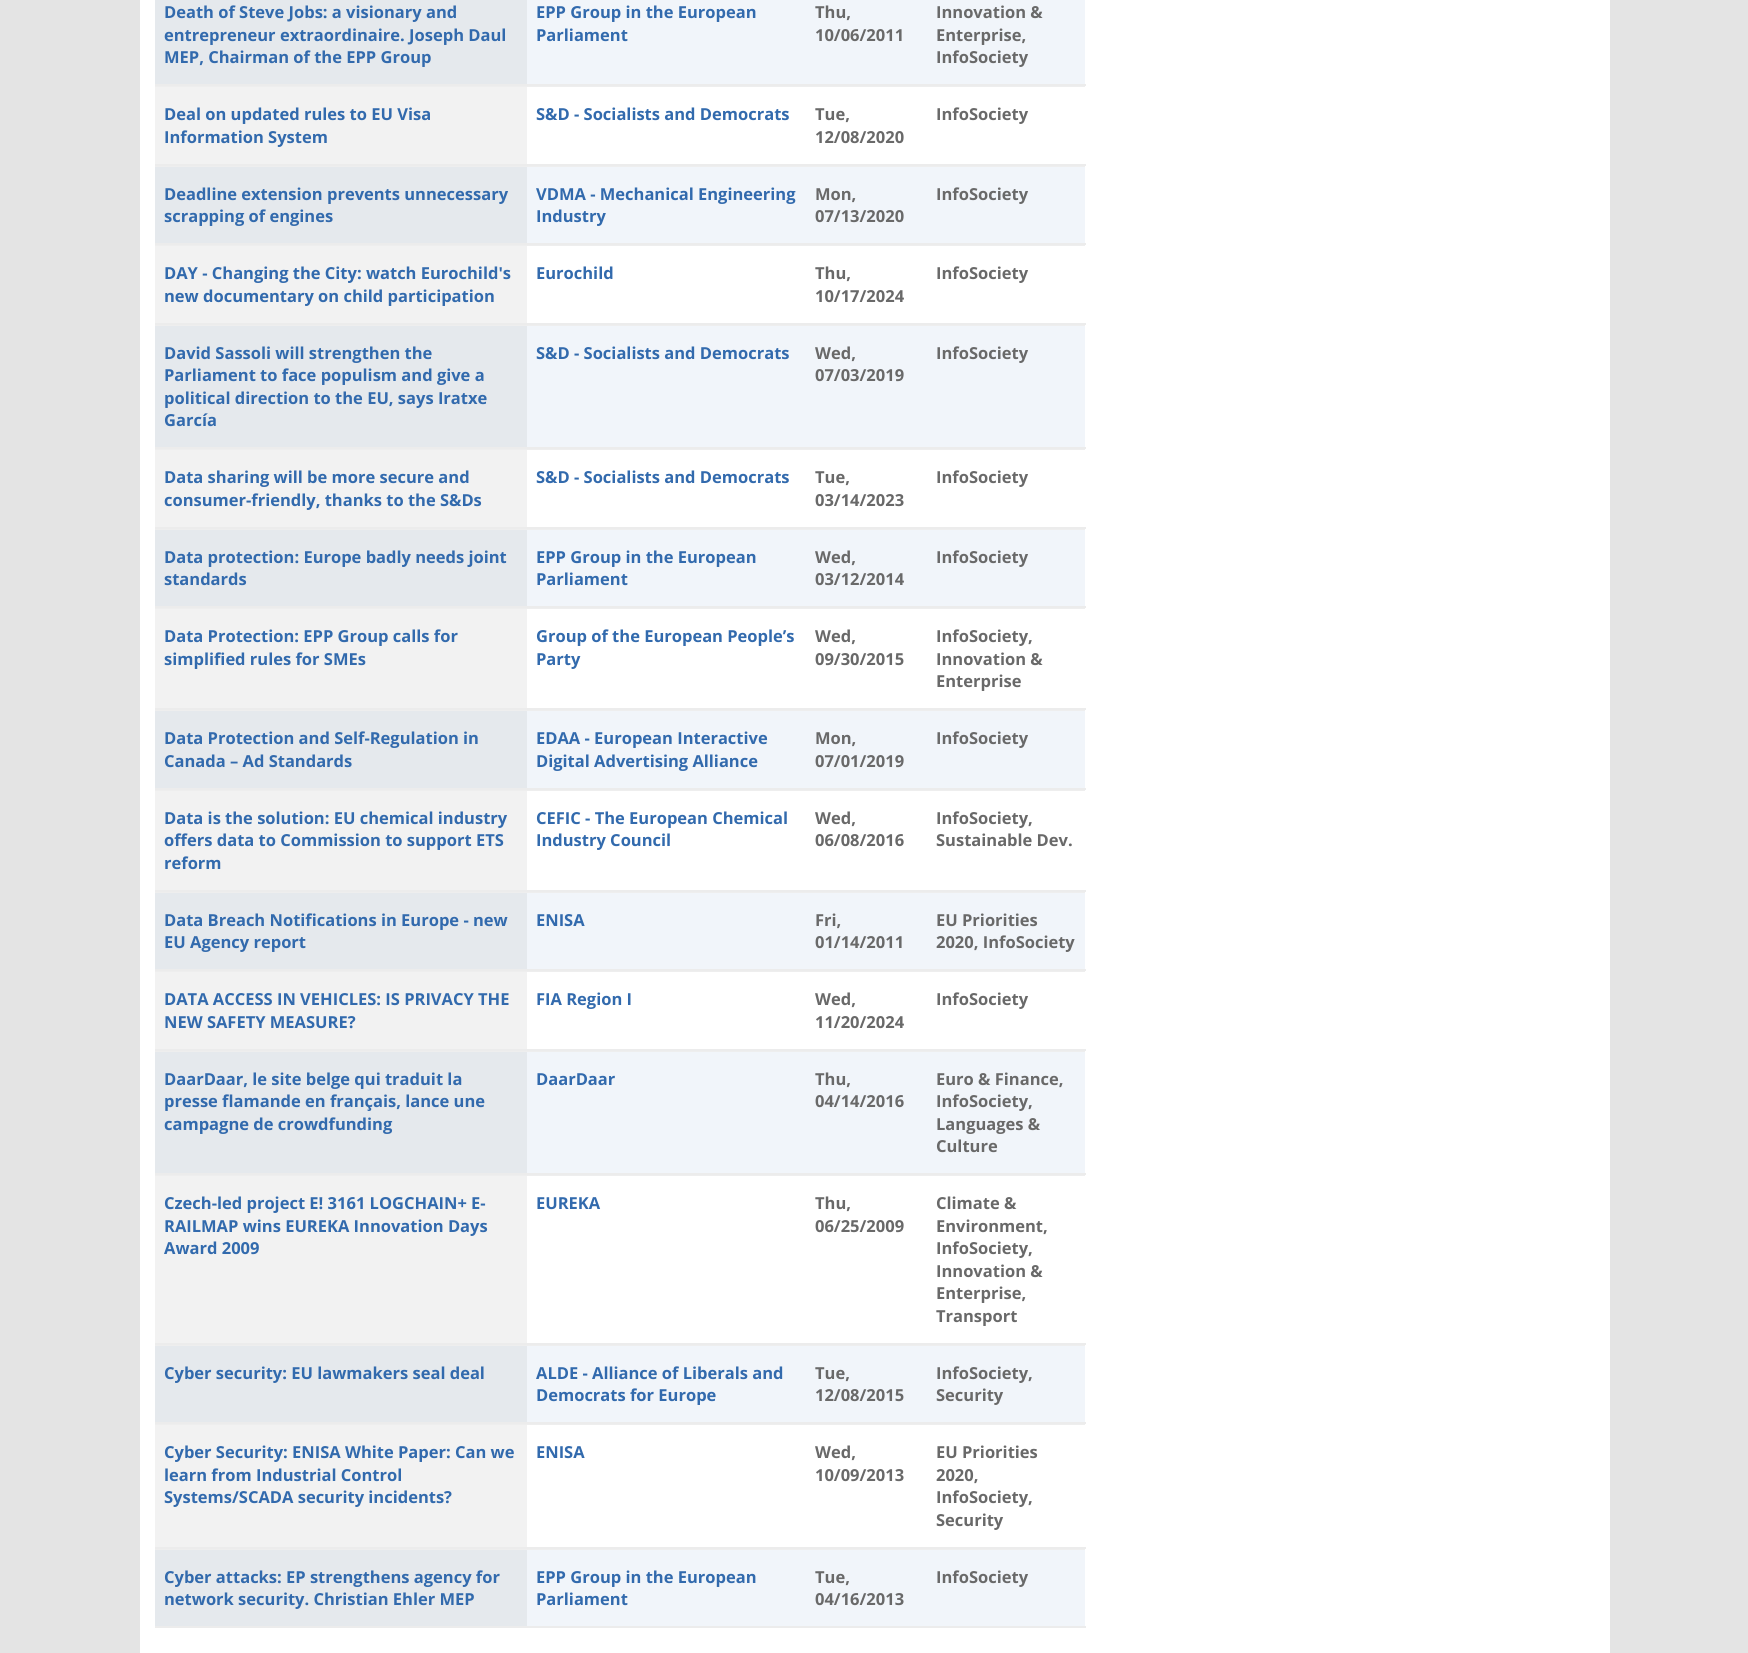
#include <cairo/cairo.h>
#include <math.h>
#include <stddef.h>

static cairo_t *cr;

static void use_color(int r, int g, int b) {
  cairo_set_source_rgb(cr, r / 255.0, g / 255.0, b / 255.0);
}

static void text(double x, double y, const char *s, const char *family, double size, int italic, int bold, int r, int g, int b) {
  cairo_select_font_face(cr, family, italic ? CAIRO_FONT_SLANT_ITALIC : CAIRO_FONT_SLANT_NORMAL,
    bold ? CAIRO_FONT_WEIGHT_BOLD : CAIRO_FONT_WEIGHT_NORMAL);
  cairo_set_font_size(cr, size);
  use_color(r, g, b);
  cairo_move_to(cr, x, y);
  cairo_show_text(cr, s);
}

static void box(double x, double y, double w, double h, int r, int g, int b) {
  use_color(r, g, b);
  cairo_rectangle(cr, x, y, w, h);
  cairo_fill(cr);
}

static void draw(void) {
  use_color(228, 228, 228);
  cairo_paint(cr);
  box(140, 0, 1470, 1653, 255, 255, 255);
  box(155, 0, 372, 84, 229, 233, 237);
  box(527, 0, 558, 84, 241, 245, 250);
  box(155, 86, 930, 1, 238, 238, 238);
  box(155, 87, 372, 77, 242, 242, 242);
  box(155, 84, 931, 2, 236, 236, 236);
  box(155, 166, 930, 1, 238, 238, 238);
  box(155, 167, 372, 76, 229, 233, 237);
  box(527, 167, 558, 76, 241, 245, 250);
  box(155, 164, 931, 2, 236, 236, 236);
  box(155, 245, 930, 1, 238, 238, 238);
  box(155, 246, 372, 77, 242, 242, 242);
  box(155, 243, 931, 2, 236, 236, 236);
  box(155, 325, 930, 1, 238, 238, 238);
  box(155, 326, 372, 121, 229, 233, 237);
  box(527, 326, 558, 121, 241, 245, 250);
  box(155, 323, 931, 2, 236, 236, 236);
  box(155, 449, 930, 1, 238, 238, 238);
  box(155, 450, 372, 77, 242, 242, 242);
  box(155, 447, 931, 2, 236, 236, 236);
  box(155, 529, 930, 1, 238, 238, 238);
  box(155, 530, 372, 76, 229, 233, 237);
  box(527, 530, 558, 76, 241, 245, 250);
  box(155, 527, 931, 2, 236, 236, 236);
  box(155, 608, 930, 1, 238, 238, 238);
  box(155, 609, 372, 99, 242, 242, 242);
  box(155, 606, 931, 2, 236, 236, 236);
  box(155, 710, 930, 1, 238, 238, 238);
  box(155, 711, 372, 77, 229, 233, 237);
  box(527, 711, 558, 77, 241, 245, 250);
  box(155, 708, 931, 2, 236, 236, 236);
  box(155, 790, 930, 1, 238, 238, 238);
  box(155, 791, 372, 99, 242, 242, 242);
  box(155, 788, 931, 2, 236, 236, 236);
  box(155, 892, 930, 1, 238, 238, 238);
  box(155, 893, 372, 76, 229, 233, 237);
  box(527, 893, 558, 76, 241, 245, 250);
  box(155, 890, 931, 2, 236, 236, 236);
  box(155, 971, 930, 1, 238, 238, 238);
  box(155, 972, 372, 77, 242, 242, 242);
  box(155, 969, 931, 2, 236, 236, 236);
  box(155, 1051, 930, 1, 238, 238, 238);
  box(155, 1052, 372, 121, 229, 233, 237);
  box(527, 1052, 558, 121, 241, 245, 250);
  box(155, 1049, 931, 2, 236, 236, 236);
  box(155, 1175, 930, 1, 238, 238, 238);
  box(155, 1176, 372, 167, 242, 242, 242);
  box(155, 1173, 931, 2, 236, 236, 236);
  box(155, 1345, 930, 1, 238, 238, 238);
  box(155, 1346, 372, 76, 229, 233, 237);
  box(527, 1346, 558, 76, 241, 245, 250);
  box(155, 1343, 931, 2, 236, 236, 236);
  box(155, 1424, 930, 1, 238, 238, 238);
  box(155, 1425, 372, 122, 242, 242, 242);
  box(155, 1422, 931, 2, 236, 236, 236);
  box(155, 1549, 930, 1, 238, 238, 238);
  box(155, 1550, 372, 76, 229, 233, 237);
  box(527, 1550, 558, 76, 241, 245, 250);
  box(155, 1547, 931, 2, 236, 236, 236);
  box(155, 1626, 931, 2, 236, 236, 236);
  text(164, 18, "Death of Steve Jobs: a visionary and", "Open Sans", 16.5, 0, 1, 50, 106, 173);
  text(164, 41, "entrepreneur extraordinaire. Joseph Daul", "Open Sans", 16.5, 0, 1, 50, 106, 173);
  text(164, 63, "MEP, Chairman of the EPP Group", "Open Sans", 16.5, 0, 1, 50, 106, 173);
  text(536, 18, "EPP Group in the European", "Open Sans", 16.5, 0, 1, 50, 106, 173);
  text(536, 41, "Parliament", "Open Sans", 16.5, 0, 1, 50, 106, 173);
  text(815, 18, "Thu,", "Open Sans", 16.5, 0, 1, 105, 105, 105);
  text(815, 41, "10/06/2011", "Open Sans", 16.5, 0, 1, 105, 105, 105);
  text(936, 18, "Innovation &", "Open Sans", 16.5, 0, 1, 105, 105, 105);
  text(936, 41, "Enterprise,", "Open Sans", 16.5, 0, 1, 105, 105, 105);
  text(936, 63, "InfoSociety", "Open Sans", 16.5, 0, 1, 105, 105, 105);
  text(164, 120, "Deal on updated rules to EU Visa", "Open Sans", 16.5, 0, 1, 50, 106, 173);
  text(164, 143, "Information System", "Open Sans", 16.5, 0, 1, 50, 106, 173);
  text(536, 120, "S&D - Socialists and Democrats", "Open Sans", 16.5, 0, 1, 50, 106, 173);
  text(815, 120, "Tue,", "Open Sans", 16.5, 0, 1, 105, 105, 105);
  text(815, 143, "12/08/2020", "Open Sans", 16.5, 0, 1, 105, 105, 105);
  text(936, 120, "InfoSociety", "Open Sans", 16.5, 0, 1, 105, 105, 105);
  text(164, 200, "Deadline extension prevents unnecessary", "Open Sans", 16.5, 0, 1, 50, 106, 173);
  text(164, 222, "scrapping of engines", "Open Sans", 16.5, 0, 1, 50, 106, 173);
  text(536, 200, "VDMA - Mechanical Engineering", "Open Sans", 16.5, 0, 1, 50, 106, 173);
  text(536, 222, "Industry", "Open Sans", 16.5, 0, 1, 50, 106, 173);
  text(815, 200, "Mon,", "Open Sans", 16.5, 0, 1, 105, 105, 105);
  text(815, 222, "07/13/2020", "Open Sans", 16.5, 0, 1, 105, 105, 105);
  text(936, 200, "InfoSociety", "Open Sans", 16.5, 0, 1, 105, 105, 105);
  text(164, 279, "DAY - Changing the City: watch Eurochild's", "Open Sans", 16.5, 0, 1, 50, 106, 173);
  text(164, 302, "new documentary on child participation", "Open Sans", 16.5, 0, 1, 50, 106, 173);
  text(536, 279, "Eurochild", "Open Sans", 16.5, 0, 1, 50, 106, 173);
  text(815, 279, "Thu,", "Open Sans", 16.5, 0, 1, 105, 105, 105);
  text(815, 302, "10/17/2024", "Open Sans", 16.5, 0, 1, 105, 105, 105);
  text(936, 279, "InfoSociety", "Open Sans", 16.5, 0, 1, 105, 105, 105);
  text(164, 359, "David Sassoli will strengthen the", "Open Sans", 16.5, 0, 1, 50, 106, 173);
  text(164, 381, "Parliament to face populism and give a", "Open Sans", 16.5, 0, 1, 50, 106, 173);
  text(164, 404, "political direction to the EU, says Iratxe", "Open Sans", 16.5, 0, 1, 50, 106, 173);
  text(164, 426, "García", "Open Sans", 16.5, 0, 1, 50, 106, 173);
  text(536, 359, "S&D - Socialists and Democrats", "Open Sans", 16.5, 0, 1, 50, 106, 173);
  text(815, 359, "Wed,", "Open Sans", 16.5, 0, 1, 105, 105, 105);
  text(815, 381, "07/03/2019", "Open Sans", 16.5, 0, 1, 105, 105, 105);
  text(936, 359, "InfoSociety", "Open Sans", 16.5, 0, 1, 105, 105, 105);
  text(164, 483, "Data sharing will be more secure and", "Open Sans", 16.5, 0, 1, 50, 106, 173);
  text(164, 506, "consumer-friendly, thanks to the S&Ds", "Open Sans", 16.5, 0, 1, 50, 106, 173);
  text(536, 483, "S&D - Socialists and Democrats", "Open Sans", 16.5, 0, 1, 50, 106, 173);
  text(815, 483, "Tue,", "Open Sans", 16.5, 0, 1, 105, 105, 105);
  text(815, 506, "03/14/2023", "Open Sans", 16.5, 0, 1, 105, 105, 105);
  text(936, 483, "InfoSociety", "Open Sans", 16.5, 0, 1, 105, 105, 105);
  text(164, 563, "Data protection: Europe badly needs joint", "Open Sans", 16.5, 0, 1, 50, 106, 173);
  text(164, 585, "standards", "Open Sans", 16.5, 0, 1, 50, 106, 173);
  text(536, 563, "EPP Group in the European", "Open Sans", 16.5, 0, 1, 50, 106, 173);
  text(536, 585, "Parliament", "Open Sans", 16.5, 0, 1, 50, 106, 173);
  text(815, 563, "Wed,", "Open Sans", 16.5, 0, 1, 105, 105, 105);
  text(815, 585, "03/12/2014", "Open Sans", 16.5, 0, 1, 105, 105, 105);
  text(936, 563, "InfoSociety", "Open Sans", 16.5, 0, 1, 105, 105, 105);
  text(164, 642, "Data Protection: EPP Group calls for", "Open Sans", 16.5, 0, 1, 50, 106, 173);
  text(164, 665, "simplified rules for SMEs", "Open Sans", 16.5, 0, 1, 50, 106, 173);
  text(536, 642, "Group of the European People’s", "Open Sans", 16.5, 0, 1, 50, 106, 173);
  text(536, 665, "Party", "Open Sans", 16.5, 0, 1, 50, 106, 173);
  text(815, 642, "Wed,", "Open Sans", 16.5, 0, 1, 105, 105, 105);
  text(815, 665, "09/30/2015", "Open Sans", 16.5, 0, 1, 105, 105, 105);
  text(936, 642, "InfoSociety,", "Open Sans", 16.5, 0, 1, 105, 105, 105);
  text(936, 665, "Innovation &", "Open Sans", 16.5, 0, 1, 105, 105, 105);
  text(936, 687, "Enterprise", "Open Sans", 16.5, 0, 1, 105, 105, 105);
  text(164, 744, "Data Protection and Self-Regulation in", "Open Sans", 16.5, 0, 1, 50, 106, 173);
  text(164, 767, "Canada – Ad Standards", "Open Sans", 16.5, 0, 1, 50, 106, 173);
  text(536, 744, "EDAA - European Interactive", "Open Sans", 16.5, 0, 1, 50, 106, 173);
  text(536, 767, "Digital Advertising Alliance", "Open Sans", 16.5, 0, 1, 50, 106, 173);
  text(815, 744, "Mon,", "Open Sans", 16.5, 0, 1, 105, 105, 105);
  text(815, 767, "07/01/2019", "Open Sans", 16.5, 0, 1, 105, 105, 105);
  text(936, 744, "InfoSociety", "Open Sans", 16.5, 0, 1, 105, 105, 105);
  text(164, 824, "Data is the solution: EU chemical industry", "Open Sans", 16.5, 0, 1, 50, 106, 173);
  text(164, 846, "offers data to Commission to support ETS", "Open Sans", 16.5, 0, 1, 50, 106, 173);
  text(164, 869, "reform", "Open Sans", 16.5, 0, 1, 50, 106, 173);
  text(536, 824, "CEFIC - The European Chemical", "Open Sans", 16.5, 0, 1, 50, 106, 173);
  text(536, 846, "Industry Council", "Open Sans", 16.5, 0, 1, 50, 106, 173);
  text(815, 824, "Wed,", "Open Sans", 16.5, 0, 1, 105, 105, 105);
  text(815, 846, "06/08/2016", "Open Sans", 16.5, 0, 1, 105, 105, 105);
  text(936, 824, "InfoSociety,", "Open Sans", 16.5, 0, 1, 105, 105, 105);
  text(936, 846, "Sustainable Dev.", "Open Sans", 16.5, 0, 1, 105, 105, 105);
  text(164, 926, "Data Breach Notifications in Europe - new", "Open Sans", 16.5, 0, 1, 50, 106, 173);
  text(164, 948, "EU Agency report", "Open Sans", 16.5, 0, 1, 50, 106, 173);
  text(536, 926, "ENISA", "Open Sans", 16.5, 0, 1, 50, 106, 173);
  text(815, 926, "Fri,", "Open Sans", 16.5, 0, 1, 105, 105, 105);
  text(815, 948, "01/14/2011", "Open Sans", 16.5, 0, 1, 105, 105, 105);
  text(936, 926, "EU Priorities", "Open Sans", 16.5, 0, 1, 105, 105, 105);
  text(936, 948, "2020, InfoSociety", "Open Sans", 16.5, 0, 1, 105, 105, 105);
  text(164, 1005, "DATA ACCESS IN VEHICLES: IS PRIVACY THE", "Open Sans", 16.5, 0, 1, 50, 106, 173);
  text(164, 1028, "NEW SAFETY MEASURE?", "Open Sans", 16.5, 0, 1, 50, 106, 173);
  text(536, 1005, "FIA Region I", "Open Sans", 16.5, 0, 1, 50, 106, 173);
  text(815, 1005, "Wed,", "Open Sans", 16.5, 0, 1, 105, 105, 105);
  text(815, 1028, "11/20/2024", "Open Sans", 16.5, 0, 1, 105, 105, 105);
  text(936, 1005, "InfoSociety", "Open Sans", 16.5, 0, 1, 105, 105, 105);
  text(164, 1085, "DaarDaar, le site belge qui traduit la", "Open Sans", 16.5, 0, 1, 50, 106, 173);
  text(164, 1107, "presse flamande en français, lance une", "Open Sans", 16.5, 0, 1, 50, 106, 173);
  text(164, 1130, "campagne de crowdfunding", "Open Sans", 16.5, 0, 1, 50, 106, 173);
  text(536, 1085, "DaarDaar", "Open Sans", 16.5, 0, 1, 50, 106, 173);
  text(815, 1085, "Thu,", "Open Sans", 16.5, 0, 1, 105, 105, 105);
  text(815, 1107, "04/14/2016", "Open Sans", 16.5, 0, 1, 105, 105, 105);
  text(936, 1085, "Euro & Finance,", "Open Sans", 16.5, 0, 1, 105, 105, 105);
  text(936, 1107, "InfoSociety,", "Open Sans", 16.5, 0, 1, 105, 105, 105);
  text(936, 1130, "Languages &", "Open Sans", 16.5, 0, 1, 105, 105, 105);
  text(936, 1152, "Culture", "Open Sans", 16.5, 0, 1, 105, 105, 105);
  text(164, 1209, "Czech-led project E! 3161 LOGCHAIN+ E-", "Open Sans", 16.5, 0, 1, 50, 106, 173);
  text(164, 1232, "RAILMAP wins EUREKA Innovation Days", "Open Sans", 16.5, 0, 1, 50, 106, 173);
  text(164, 1254, "Award 2009", "Open Sans", 16.5, 0, 1, 50, 106, 173);
  text(536, 1209, "EUREKA", "Open Sans", 16.5, 0, 1, 50, 106, 173);
  text(815, 1209, "Thu,", "Open Sans", 16.5, 0, 1, 105, 105, 105);
  text(815, 1232, "06/25/2009", "Open Sans", 16.5, 0, 1, 105, 105, 105);
  text(936, 1209, "Climate &", "Open Sans", 16.5, 0, 1, 105, 105, 105);
  text(936, 1232, "Environment,", "Open Sans", 16.5, 0, 1, 105, 105, 105);
  text(936, 1254, "InfoSociety,", "Open Sans", 16.5, 0, 1, 105, 105, 105);
  text(936, 1277, "Innovation &", "Open Sans", 16.5, 0, 1, 105, 105, 105);
  text(936, 1299, "Enterprise,", "Open Sans", 16.5, 0, 1, 105, 105, 105);
  text(936, 1322, "Transport", "Open Sans", 16.5, 0, 1, 105, 105, 105);
  text(164, 1379, "Cyber security: EU lawmakers seal deal", "Open Sans", 16.5, 0, 1, 50, 106, 173);
  text(536, 1379, "ALDE - Alliance of Liberals and", "Open Sans", 16.5, 0, 1, 50, 106, 173);
  text(536, 1401, "Democrats for Europe", "Open Sans", 16.5, 0, 1, 50, 106, 173);
  text(815, 1379, "Tue,", "Open Sans", 16.5, 0, 1, 105, 105, 105);
  text(815, 1401, "12/08/2015", "Open Sans", 16.5, 0, 1, 105, 105, 105);
  text(936, 1379, "InfoSociety,", "Open Sans", 16.5, 0, 1, 105, 105, 105);
  text(936, 1401, "Security", "Open Sans", 16.5, 0, 1, 105, 105, 105);
  text(164, 1458, "Cyber Security: ENISA White Paper: Can we", "Open Sans", 16.5, 0, 1, 50, 106, 173);
  text(164, 1481, "learn from Industrial Control", "Open Sans", 16.5, 0, 1, 50, 106, 173);
  text(164, 1503, "Systems/SCADA security incidents?", "Open Sans", 16.5, 0, 1, 50, 106, 173);
  text(536, 1458, "ENISA", "Open Sans", 16.5, 0, 1, 50, 106, 173);
  text(815, 1458, "Wed,", "Open Sans", 16.5, 0, 1, 105, 105, 105);
  text(815, 1481, "10/09/2013", "Open Sans", 16.5, 0, 1, 105, 105, 105);
  text(936, 1458, "EU Priorities", "Open Sans", 16.5, 0, 1, 105, 105, 105);
  text(936, 1481, "2020,", "Open Sans", 16.5, 0, 1, 105, 105, 105);
  text(936, 1503, "InfoSociety,", "Open Sans", 16.5, 0, 1, 105, 105, 105);
  text(936, 1526, "Security", "Open Sans", 16.5, 0, 1, 105, 105, 105);
  text(164, 1583, "Cyber attacks: EP strengthens agency for", "Open Sans", 16.5, 0, 1, 50, 106, 173);
  text(164, 1605, "network security. Christian Ehler MEP", "Open Sans", 16.5, 0, 1, 50, 106, 173);
  text(536, 1583, "EPP Group in the European", "Open Sans", 16.5, 0, 1, 50, 106, 173);
  text(536, 1605, "Parliament", "Open Sans", 16.5, 0, 1, 50, 106, 173);
  text(815, 1583, "Tue,", "Open Sans", 16.5, 0, 1, 105, 105, 105);
  text(815, 1605, "04/16/2013", "Open Sans", 16.5, 0, 1, 105, 105, 105);
  text(936, 1583, "InfoSociety", "Open Sans", 16.5, 0, 1, 105, 105, 105);
}

int main(void) {
  cairo_surface_t *surface = cairo_image_surface_create(CAIRO_FORMAT_RGB24, 1748, 1653);
  cr = cairo_create(surface);
  cairo_font_options_t *options = cairo_font_options_create();
  cairo_font_options_set_hint_metrics(options, CAIRO_HINT_METRICS_OFF);
  cairo_font_options_set_hint_style(options, CAIRO_HINT_STYLE_NONE);
  cairo_set_font_options(cr, options);
  cairo_set_miter_limit(cr, 4);
  draw();
  cairo_surface_write_to_png(surface, "out.png");
  cairo_font_options_destroy(options);
  cairo_destroy(cr);
  cairo_surface_destroy(surface);
  return 0;
}
